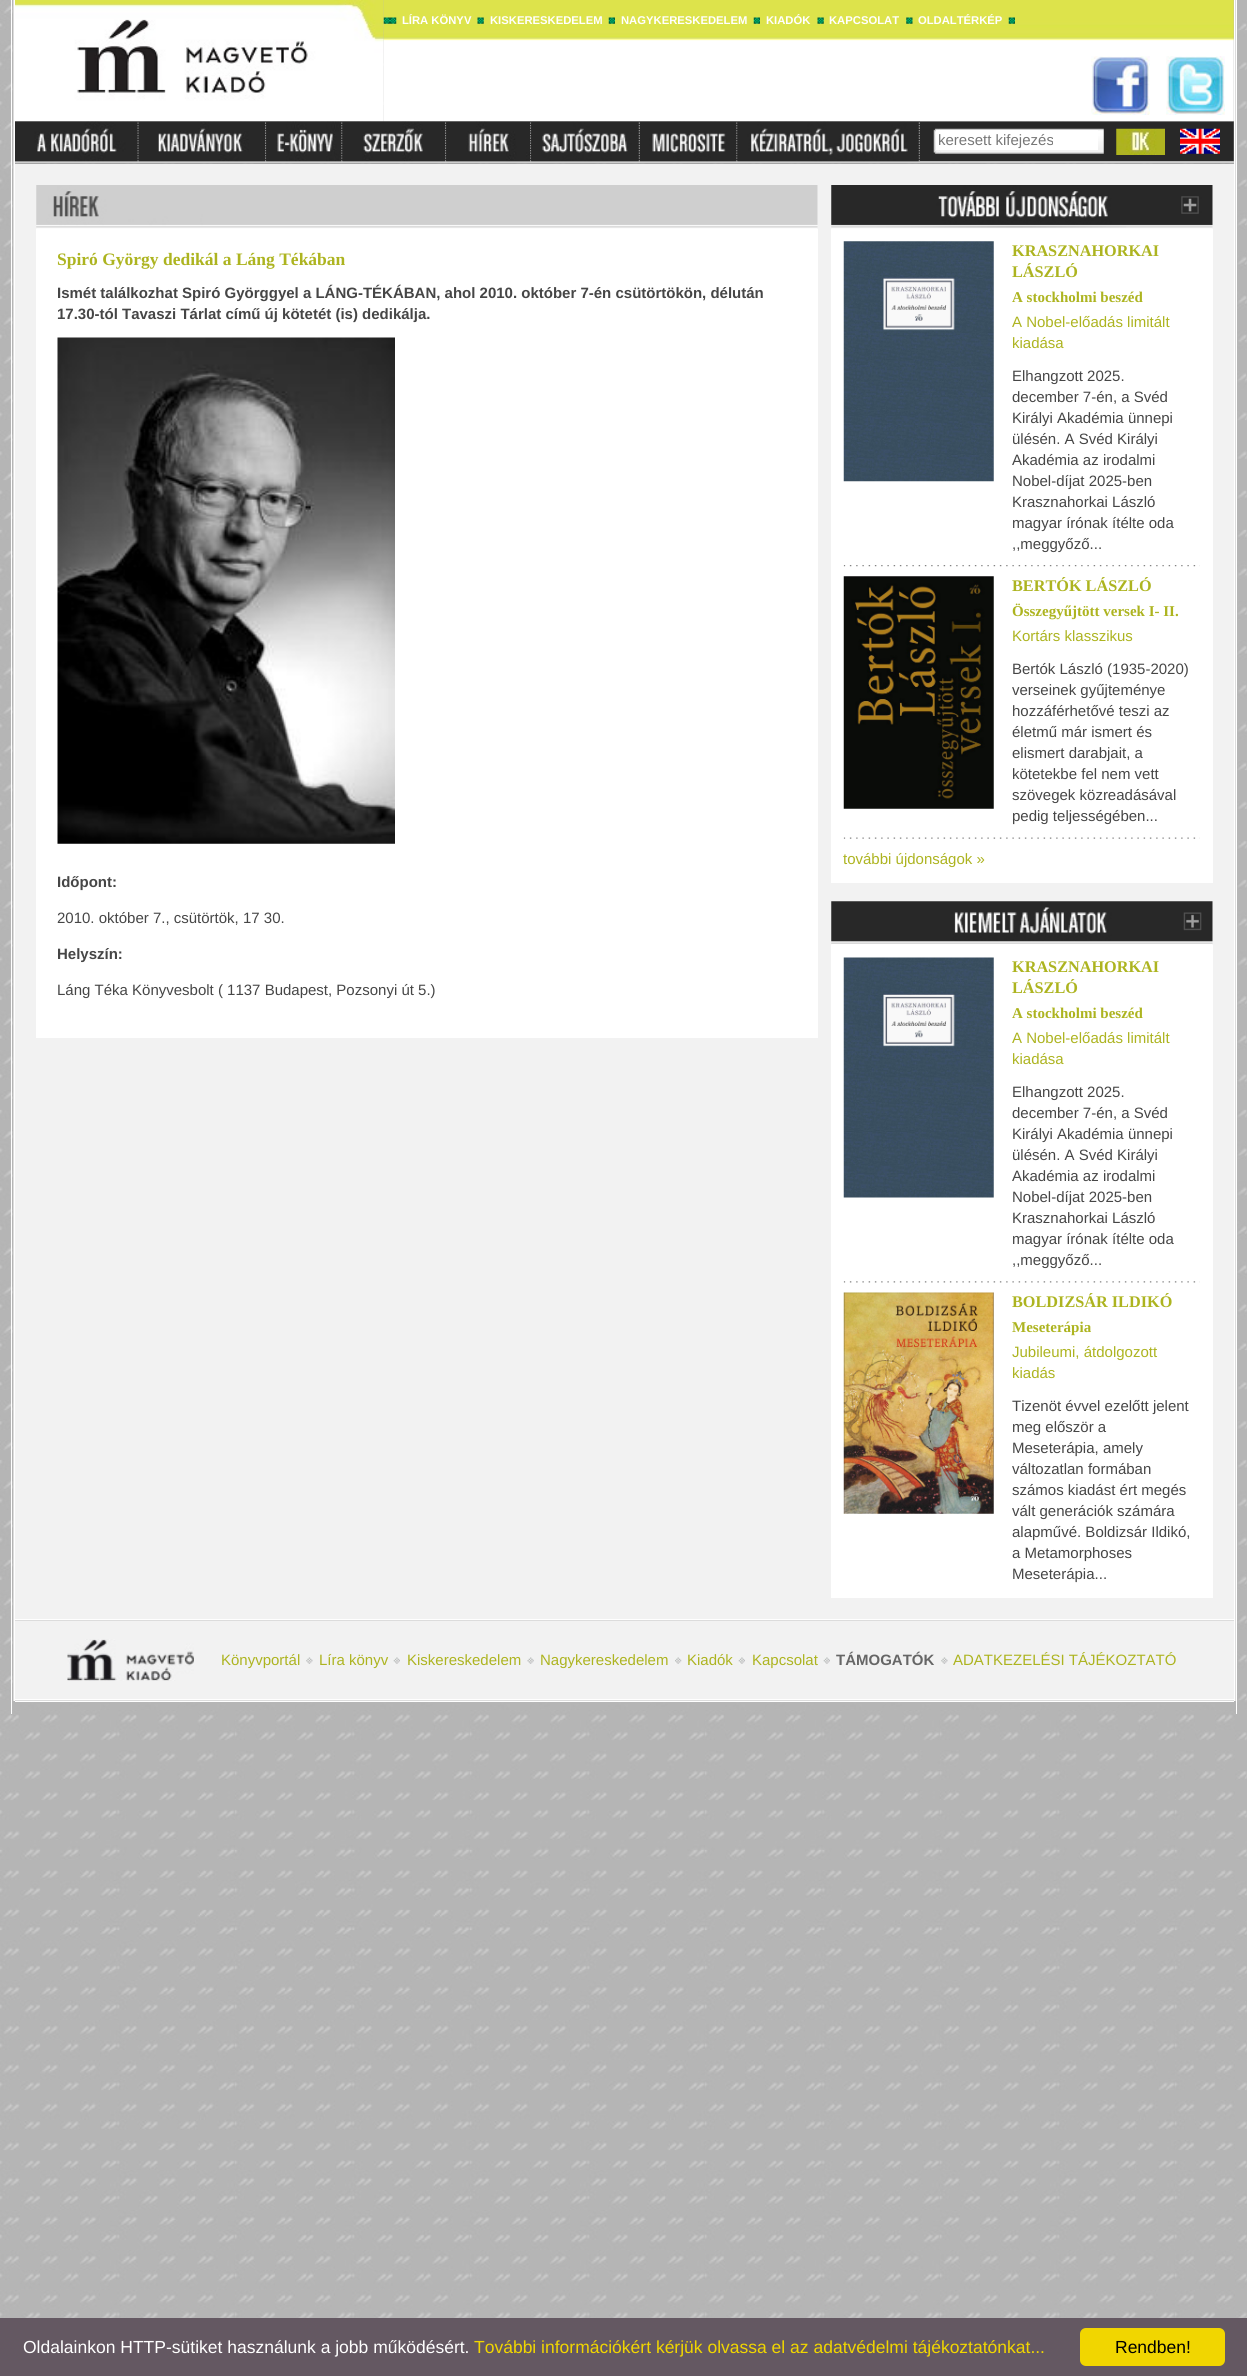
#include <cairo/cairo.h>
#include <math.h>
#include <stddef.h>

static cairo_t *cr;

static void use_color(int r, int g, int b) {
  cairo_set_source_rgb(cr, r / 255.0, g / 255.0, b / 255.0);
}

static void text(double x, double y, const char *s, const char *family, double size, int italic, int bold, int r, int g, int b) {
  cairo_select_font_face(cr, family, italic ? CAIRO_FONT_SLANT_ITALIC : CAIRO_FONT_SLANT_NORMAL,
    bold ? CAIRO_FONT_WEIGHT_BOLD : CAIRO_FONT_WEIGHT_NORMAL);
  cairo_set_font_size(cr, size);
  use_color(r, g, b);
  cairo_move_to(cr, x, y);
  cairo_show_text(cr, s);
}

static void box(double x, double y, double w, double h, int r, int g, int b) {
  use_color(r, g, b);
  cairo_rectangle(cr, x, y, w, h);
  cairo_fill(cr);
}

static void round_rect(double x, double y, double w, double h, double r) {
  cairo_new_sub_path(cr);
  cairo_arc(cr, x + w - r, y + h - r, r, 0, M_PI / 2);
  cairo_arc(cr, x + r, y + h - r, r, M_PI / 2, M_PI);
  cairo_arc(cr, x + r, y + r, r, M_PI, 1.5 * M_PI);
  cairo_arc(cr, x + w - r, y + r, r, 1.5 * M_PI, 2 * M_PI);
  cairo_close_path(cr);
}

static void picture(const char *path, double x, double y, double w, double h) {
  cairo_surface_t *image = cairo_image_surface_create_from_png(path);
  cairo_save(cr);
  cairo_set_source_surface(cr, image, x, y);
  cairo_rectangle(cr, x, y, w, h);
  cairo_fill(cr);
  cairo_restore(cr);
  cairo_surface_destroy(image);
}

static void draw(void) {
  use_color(255, 255, 255);
  cairo_paint(cr);
  picture("img_01.png", 0, 0, 1247, 2318);
  box(1236, 0, 1, 1714, 255, 255, 255);
  box(11, 0, 1, 1714, 255, 255, 255);
  box(1235, 0, 1, 1701, 220, 220, 220);
  box(13, 0, 1, 1701, 220, 220, 220);
  box(1234, 0, 1, 1701, 255, 255, 255);
  box(14, 0, 1, 1701, 255, 255, 255);
  picture("img_13.png", 15, 121, 1219, 43);
  picture("img_14.png", 15, 121, 123, 41);
  picture("img_15.png", 137, 121, 2, 41);
  picture("img_16.png", 138, 121, 127, 41);
  picture("img_17.png", 265, 121, 2, 41);
  picture("img_18.png", 266, 121, 76, 41);
  picture("img_19.png", 341, 121, 2, 41);
  picture("img_20.png", 342, 121, 103, 41);
  picture("img_02.png", 15, 0, 369, 122);
  picture("img_17.png", 445, 121, 2, 41);
  picture("img_21.png", 446, 121, 84, 41);
  picture("img_17.png", 530, 121, 2, 41);
  picture("img_22.png", 531, 121, 108, 41);
  picture("img_23.png", 638, 121, 2, 41);
  picture("img_24.png", 640, 121, 97, 41);
  picture("img_19.png", 736, 121, 2, 41);
  picture("img_25.png", 737, 121, 182, 41);
  picture("img_23.png", 918, 121, 2, 41);
  picture("img_03.png", 383, 0, 851, 122);
  picture("img_04.png", 383, 17, 7, 7);
  picture("img_05.png", 390, 17, 7, 7);
  picture("img_06.png", 477, 17, 7, 7);
  picture("img_07.png", 608, 17, 7, 7);
  picture("img_08.png", 753, 17, 7, 7);
  picture("img_09.png", 817, 17, 7, 7);
  picture("img_10.png", 906, 17, 7, 7);
  picture("img_08.png", 1008, 17, 7, 7);
  picture("img_11.png", 1091, 56, 59, 59);
  picture("img_12.png", 1166, 56, 59, 59);
  picture("img_26.png", 933, 128, 171, 26);
  box(936, 130, 162, 20, 255, 255, 255);
  picture("img_27.png", 1116, 128, 49, 27);
  picture("img_28.png", 1180, 128, 40, 26);
  box(15, 164, 1219, 1455, 242, 242, 242);
  picture("img_29.png", 36, 185, 782, 44);
  box(36, 229, 782, 809, 255, 255, 255);
  picture("img_30.png", 57, 337, 338, 507);
  picture("img_31.png", 831, 185, 382, 44);
  box(831, 229, 382, 654, 255, 255, 255);
  picture("img_32.png", 843, 241, 151, 241);
  picture("img_33.png", 843, 565, 357, 2);
  picture("img_34.png", 843, 576, 151, 233);
  picture("img_35.png", 843, 837, 357, 2);
  picture("img_36.png", 831, 901, 382, 44);
  box(831, 945, 382, 653, 255, 255, 255);
  picture("img_37.png", 843, 957, 151, 241);
  picture("img_38.png", 843, 1281, 357, 2);
  picture("img_39.png", 843, 1292, 151, 222);
  box(15, 1619, 1219, 1, 255, 255, 255);
  box(15, 1620, 1219, 1, 220, 220, 220);
  box(15, 1621, 1219, 78, 242, 242, 242);
  picture("img_40.png", 67, 1639, 127, 42);
  picture("img_41.png", 306, 1657, 7, 7);
  picture("img_42.png", 393, 1657, 7, 7);
  picture("img_43.png", 527, 1657, 7, 7);
  picture("img_44.png", 675, 1657, 7, 7);
  picture("img_42.png", 738, 1657, 7, 7);
  picture("img_42.png", 823, 1657, 7, 7);
  picture("img_41.png", 941, 1657, 7, 7);
  box(15, 1699, 1219, 3, 255, 255, 255);
  box(15, 1700, 1219, 1, 220, 220, 220);
  box(0, 2318, 1247, 58, 100, 88, 98);
  use_color(241, 214, 0);
  round_rect(1080, 2328, 145, 38, 6);
  cairo_fill(cr);
  text(402, 24, "LÍRA KÖNYV", "Liberation Sans", 11.25, 0, 1, 255, 255, 255);
  text(490, 24, "KISKERESKEDELEM", "Liberation Sans", 11.25, 0, 1, 255, 255, 255);
  text(621, 24, "NAGYKERESKEDELEM", "Liberation Sans", 11.25, 0, 1, 255, 255, 255);
  text(766, 24, "KIADÓK", "Liberation Sans", 11.25, 0, 1, 255, 255, 255);
  text(829, 24, "KAPCSOLAT", "Liberation Sans", 11.25, 0, 1, 255, 255, 255);
  text(918, 24, "OLDALTÉRKÉP", "Liberation Sans", 11.25, 0, 1, 255, 255, 255);
  text(938, 145, "keresett kifejezés", "Liberation Sans", 15, 0, 0, 119, 119, 119);
  text(57, 265, "Spiró György dedikál a Láng Tékában", "Liberation Serif", 17.5, 0, 1, 173, 180, 32);
  text(57, 298, "Ismét találkozhat Spiró Györggyel a LÁNG-TÉKÁBAN, ahol 2010. október 7-én csütörtökön, délután", "Liberation Sans", 15, 0, 1, 70, 70, 70);
  text(57, 319, "17.30-tól Tavaszi Tárlat című új kötetét (is) dedikálja.", "Liberation Sans", 15, 0, 1, 70, 70, 70);
  text(57, 887, "Időpont:", "Liberation Sans", 15, 0, 1, 70, 70, 70);
  text(57, 923, "2010. október 7., csütörtök, 17 30.", "Liberation Sans", 15, 0, 0, 70, 70, 70);
  text(57, 959, "Helyszín:", "Liberation Sans", 15, 0, 1, 70, 70, 70);
  text(57, 995, "Láng Téka Könyvesbolt ( 1137 Budapest, Pozsonyi út 5.)", "Liberation Sans", 15, 0, 0, 70, 70, 70);
  text(1012, 256, "KRASZNAHORKAI", "Liberation Serif", 16.25, 0, 1, 173, 180, 32);
  text(1012, 277, "LÁSZLÓ", "Liberation Serif", 16.25, 0, 1, 173, 180, 32);
  text(1012, 302, "A stockholmi beszéd", "Liberation Serif", 15, 0, 1, 173, 180, 32);
  text(1012, 327, "A Nobel-előadás limitált", "Liberation Sans", 15, 0, 0, 173, 180, 32);
  text(1012, 348, "kiadása", "Liberation Sans", 15, 0, 0, 173, 180, 32);
  text(1012, 381, "Elhangzott 2025.", "Liberation Sans", 15, 0, 0, 70, 70, 70);
  text(1012, 402, "december 7-én, a Svéd", "Liberation Sans", 15, 0, 0, 70, 70, 70);
  text(1012, 423, "Királyi Akadémia ünnepi", "Liberation Sans", 15, 0, 0, 70, 70, 70);
  text(1012, 444, "ülésén. A Svéd Királyi", "Liberation Sans", 15, 0, 0, 70, 70, 70);
  text(1012, 465, "Akadémia az irodalmi", "Liberation Sans", 15, 0, 0, 70, 70, 70);
  text(1012, 486, "Nobel-díjat 2025-ben", "Liberation Sans", 15, 0, 0, 70, 70, 70);
  text(1012, 507, "Krasznahorkai László", "Liberation Sans", 15, 0, 0, 70, 70, 70);
  text(1012, 528, "magyar írónak ítélte oda", "Liberation Sans", 15, 0, 0, 70, 70, 70);
  text(1012, 549, ",,meggyőző...", "Liberation Sans", 15, 0, 0, 70, 70, 70);
  text(1012, 591, "BERTÓK LÁSZLÓ", "Liberation Serif", 16.25, 0, 1, 173, 180, 32);
  text(1012, 616, "Összegyűjtött versek I- II.", "Liberation Serif", 15, 0, 1, 173, 180, 32);
  text(1012, 641, "Kortárs klasszikus", "Liberation Sans", 15, 0, 0, 173, 180, 32);
  text(1012, 674, "Bertók László (1935-2020)", "Liberation Sans", 15, 0, 0, 70, 70, 70);
  text(1012, 695, "verseinek gyűjteménye", "Liberation Sans", 15, 0, 0, 70, 70, 70);
  text(1012, 716, "hozzáférhetővé teszi az", "Liberation Sans", 15, 0, 0, 70, 70, 70);
  text(1012, 737, "életmű már ismert és", "Liberation Sans", 15, 0, 0, 70, 70, 70);
  text(1012, 758, "elismert darabjait, a", "Liberation Sans", 15, 0, 0, 70, 70, 70);
  text(1012, 779, "kötetekbe fel nem vett", "Liberation Sans", 15, 0, 0, 70, 70, 70);
  text(1012, 800, "szövegek közreadásával", "Liberation Sans", 15, 0, 0, 70, 70, 70);
  text(1012, 821, "pedig teljességében...", "Liberation Sans", 15, 0, 0, 70, 70, 70);
  text(843, 864, "további újdonságok »", "Liberation Sans", 15, 0, 0, 173, 180, 32);
  text(1012, 972, "KRASZNAHORKAI", "Liberation Serif", 16.25, 0, 1, 173, 180, 32);
  text(1012, 993, "LÁSZLÓ", "Liberation Serif", 16.25, 0, 1, 173, 180, 32);
  text(1012, 1018, "A stockholmi beszéd", "Liberation Serif", 15, 0, 1, 173, 180, 32);
  text(1012, 1043, "A Nobel-előadás limitált", "Liberation Sans", 15, 0, 0, 173, 180, 32);
  text(1012, 1064, "kiadása", "Liberation Sans", 15, 0, 0, 173, 180, 32);
  text(1012, 1097, "Elhangzott 2025.", "Liberation Sans", 15, 0, 0, 70, 70, 70);
  text(1012, 1118, "december 7-én, a Svéd", "Liberation Sans", 15, 0, 0, 70, 70, 70);
  text(1012, 1139, "Királyi Akadémia ünnepi", "Liberation Sans", 15, 0, 0, 70, 70, 70);
  text(1012, 1160, "ülésén. A Svéd Királyi", "Liberation Sans", 15, 0, 0, 70, 70, 70);
  text(1012, 1181, "Akadémia az irodalmi", "Liberation Sans", 15, 0, 0, 70, 70, 70);
  text(1012, 1202, "Nobel-díjat 2025-ben", "Liberation Sans", 15, 0, 0, 70, 70, 70);
  text(1012, 1223, "Krasznahorkai László", "Liberation Sans", 15, 0, 0, 70, 70, 70);
  text(1012, 1244, "magyar írónak ítélte oda", "Liberation Sans", 15, 0, 0, 70, 70, 70);
  text(1012, 1265, ",,meggyőző...", "Liberation Sans", 15, 0, 0, 70, 70, 70);
  text(1012, 1307, "BOLDIZSÁR ILDIKÓ", "Liberation Serif", 16.25, 0, 1, 173, 180, 32);
  text(1012, 1332, "Meseterápia", "Liberation Serif", 15, 0, 1, 173, 180, 32);
  text(1012, 1357, "Jubileumi, átdolgozott", "Liberation Sans", 15, 0, 0, 173, 180, 32);
  text(1012, 1378, "kiadás", "Liberation Sans", 15, 0, 0, 173, 180, 32);
  text(1012, 1411, "Tizenöt évvel ezelőtt jelent", "Liberation Sans", 15, 0, 0, 70, 70, 70);
  text(1012, 1432, "meg először a", "Liberation Sans", 15, 0, 0, 70, 70, 70);
  text(1012, 1453, "Meseterápia, amely", "Liberation Sans", 15, 0, 0, 70, 70, 70);
  text(1012, 1474, "változatlan formában", "Liberation Sans", 15, 0, 0, 70, 70, 70);
  text(1012, 1495, "számos kiadást ért megés", "Liberation Sans", 15, 0, 0, 70, 70, 70);
  text(1012, 1516, "vált generációk számára", "Liberation Sans", 15, 0, 0, 70, 70, 70);
  text(1012, 1537, "alapművé. Boldizsár Ildikó,", "Liberation Sans", 15, 0, 0, 70, 70, 70);
  text(1012, 1558, "a Metamorphoses", "Liberation Sans", 15, 0, 0, 70, 70, 70);
  text(1012, 1579, "Meseterápia...", "Liberation Sans", 15, 0, 0, 70, 70, 70);
  text(221, 1665, "Könyvportál", "Liberation Sans", 15, 0, 0, 173, 180, 32);
  text(319, 1665, "Líra könyv", "Liberation Sans", 15, 0, 0, 173, 180, 32);
  text(407, 1665, "Kiskereskedelem", "Liberation Sans", 15, 0, 0, 173, 180, 32);
  text(540, 1665, "Nagykereskedelem", "Liberation Sans", 15, 0, 0, 173, 180, 32);
  text(687, 1665, "Kiadók", "Liberation Sans", 15, 0, 0, 173, 180, 32);
  text(752, 1665, "Kapcsolat", "Liberation Sans", 15, 0, 0, 173, 180, 32);
  text(836, 1665, "TÁMOGATÓK", "Liberation Sans", 15, 0, 1, 102, 102, 102);
  text(953, 1665, "ADATKEZELÉSI TÁJÉKOZTATÓ", "Liberation Sans", 15, 0, 0, 173, 180, 32);
  text(23, 2353, "Oldalainkon HTTP-sütiket használunk a jobb működésért.", "Liberation Sans", 17.5, 0, 0, 255, 255, 255);
  text(474, 2353, "További információkért kérjük olvassa el az adatvédelmi tájékoztatónkat...", "Liberation Sans", 17.5, 0, 0, 241, 214, 0);
  text(1115, 2353, "Rendben!", "Liberation Sans", 17.5, 0, 0, 0, 0, 0);
}

int main(void) {
  cairo_surface_t *surface = cairo_image_surface_create(CAIRO_FORMAT_RGB24, 1247, 2376);
  cr = cairo_create(surface);
  cairo_font_options_t *options = cairo_font_options_create();
  cairo_font_options_set_hint_metrics(options, CAIRO_HINT_METRICS_OFF);
  cairo_font_options_set_hint_style(options, CAIRO_HINT_STYLE_NONE);
  cairo_set_font_options(cr, options);
  cairo_set_miter_limit(cr, 4);
  draw();
  cairo_surface_write_to_png(surface, "out.png");
  cairo_font_options_destroy(options);
  cairo_destroy(cr);
  cairo_surface_destroy(surface);
  return 0;
}
